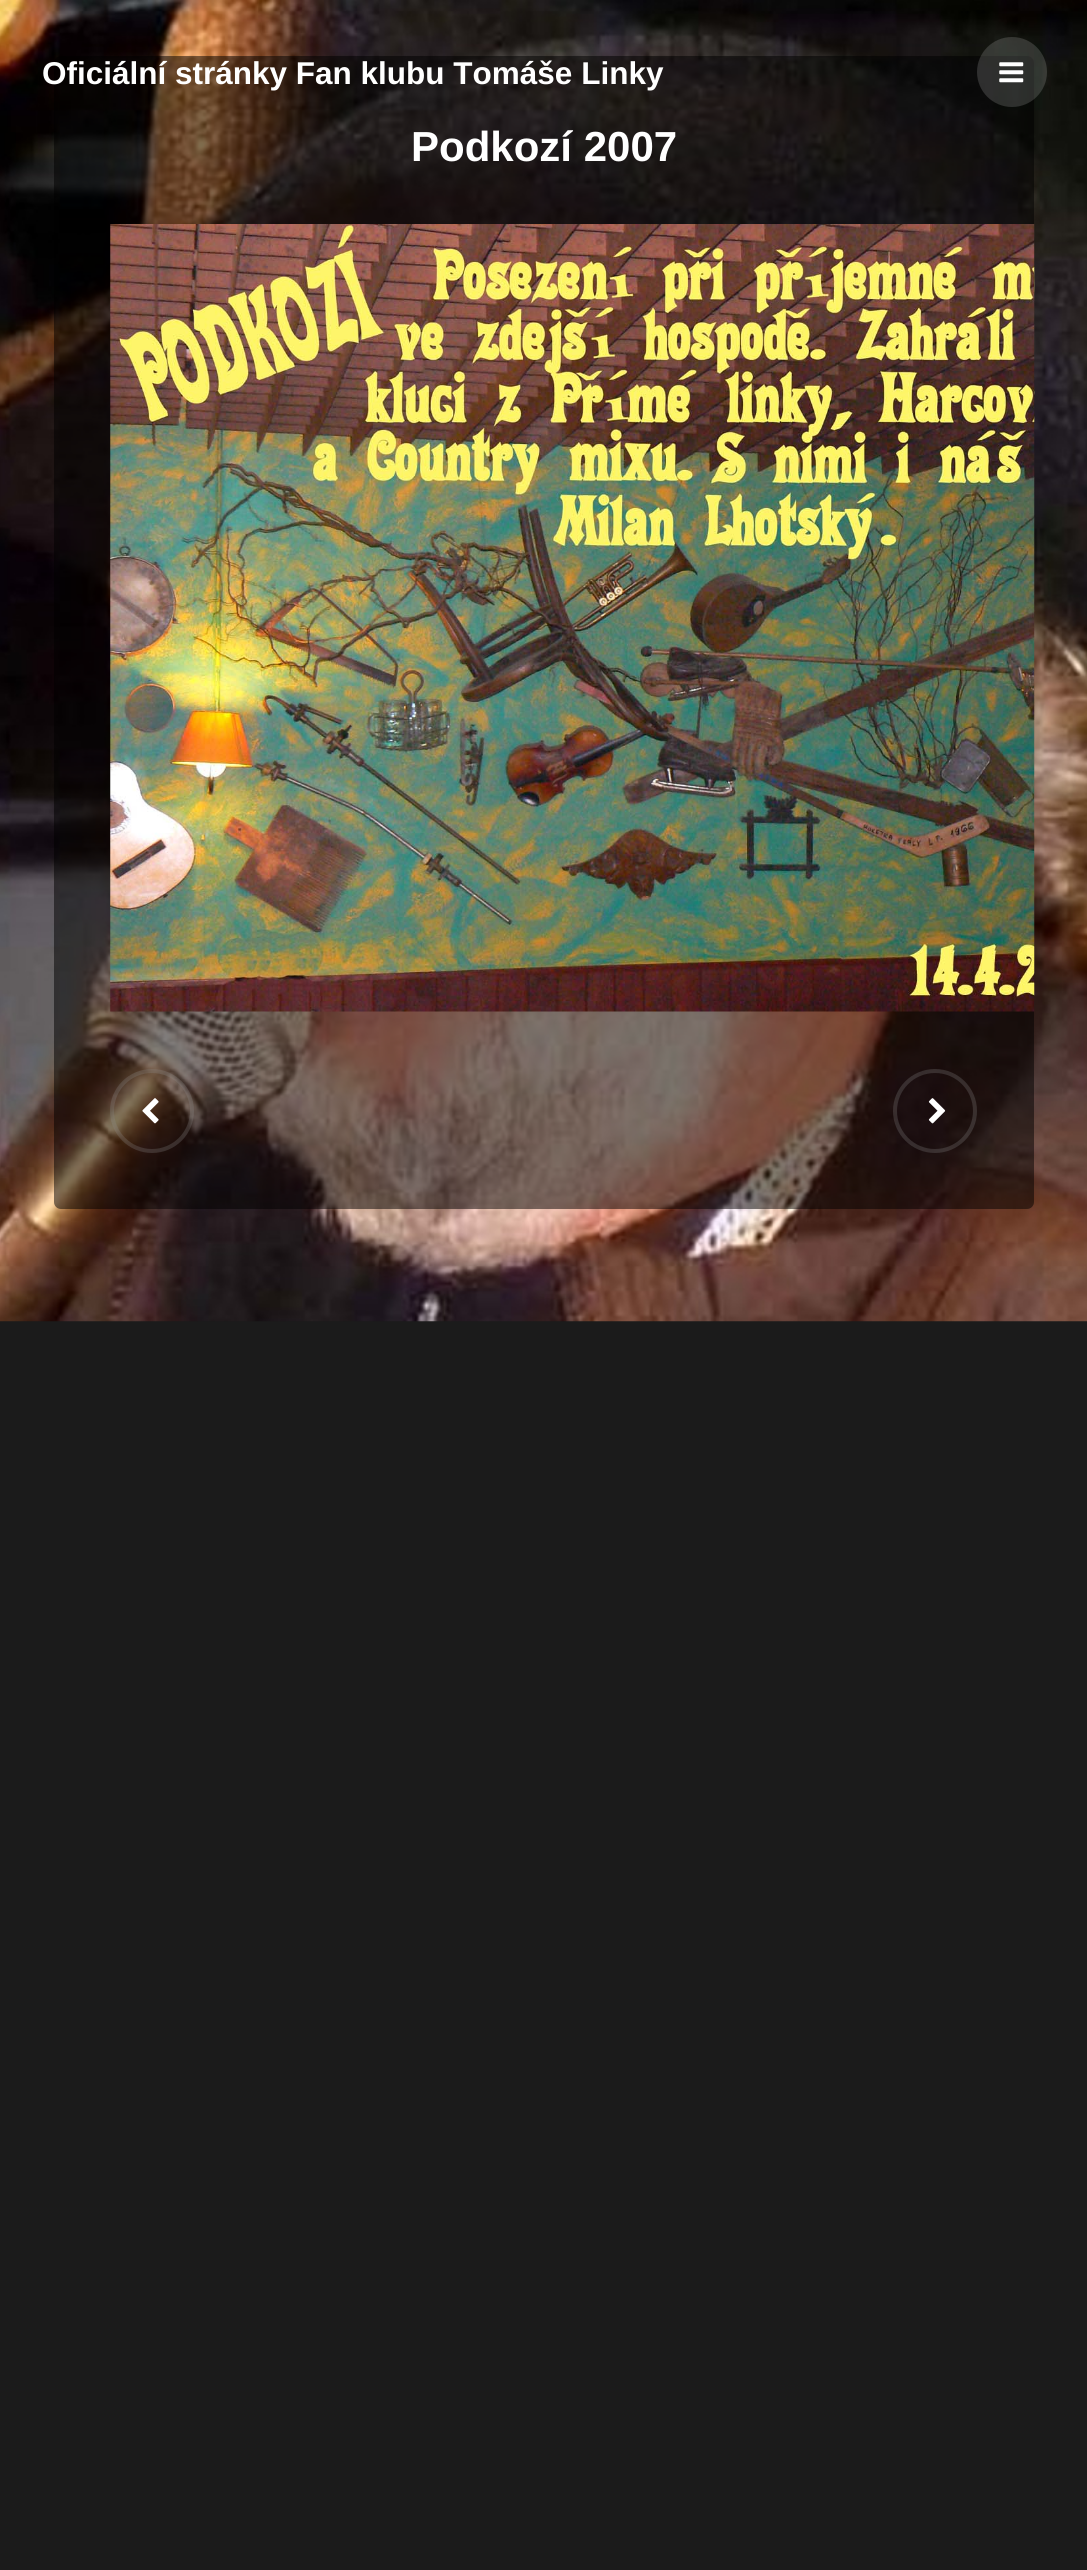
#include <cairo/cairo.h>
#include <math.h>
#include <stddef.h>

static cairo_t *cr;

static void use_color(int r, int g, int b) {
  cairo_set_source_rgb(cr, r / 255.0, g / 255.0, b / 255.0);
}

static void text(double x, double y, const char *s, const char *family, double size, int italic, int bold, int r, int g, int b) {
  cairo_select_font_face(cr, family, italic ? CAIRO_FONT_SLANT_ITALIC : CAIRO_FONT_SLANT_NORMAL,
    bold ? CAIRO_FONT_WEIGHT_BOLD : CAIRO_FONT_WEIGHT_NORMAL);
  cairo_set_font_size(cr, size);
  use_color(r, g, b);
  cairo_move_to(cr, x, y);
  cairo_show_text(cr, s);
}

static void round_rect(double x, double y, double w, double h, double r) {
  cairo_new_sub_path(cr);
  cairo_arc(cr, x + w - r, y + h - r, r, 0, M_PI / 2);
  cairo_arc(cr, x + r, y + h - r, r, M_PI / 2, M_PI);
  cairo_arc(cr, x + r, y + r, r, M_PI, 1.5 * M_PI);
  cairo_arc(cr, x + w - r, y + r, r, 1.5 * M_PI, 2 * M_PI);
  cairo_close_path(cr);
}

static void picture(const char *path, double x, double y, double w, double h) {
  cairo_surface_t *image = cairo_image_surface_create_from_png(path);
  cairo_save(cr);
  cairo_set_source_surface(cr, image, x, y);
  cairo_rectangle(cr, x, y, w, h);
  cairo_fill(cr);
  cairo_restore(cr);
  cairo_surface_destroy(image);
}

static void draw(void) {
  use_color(27, 27, 27);
  cairo_paint(cr);
  picture("img_02.png", 0, 0, 1087, 1322);
  cairo_set_source_rgba(cr, 0, 0, 0, 0.5);
  round_rect(54, 56, 980, 1153, 7);
  cairo_fill(cr);
  cairo_set_source_rgba(cr, 1, 1, 1, 0.15);
  cairo_arc(cr, 1012, 72, 35, 0, 2 * M_PI);
  cairo_fill(cr);
  picture("img_01.png", 999, 62, 25, 21);
  picture("img_03.png", 110, 224, 925, 788);
  cairo_arc(cr, 152, 1111, 40, 0, 2 * M_PI);
  cairo_set_source_rgba(cr, 0.565, 0.565, 0.565, 0.25);
  cairo_set_line_width(cr, 4);
  cairo_stroke(cr);
  picture("img_04.png", 142, 1098, 17, 26);
  cairo_arc(cr, 935, 1111, 40, 0, 2 * M_PI);
  cairo_stroke(cr);
  picture("img_05.png", 928, 1098, 18, 26);
  text(42, 84, "Oficiální stránky Fan klubu Tomáše Linky", "Liberation Sans", 31.5, 0, 1, 255, 255, 255);
  text(411, 161, "Podkozí 2007", "Liberation Sans", 42, 0, 1, 255, 255, 255);
}

int main(void) {
  cairo_surface_t *surface = cairo_image_surface_create(CAIRO_FORMAT_RGB24, 1087, 2570);
  cr = cairo_create(surface);
  cairo_font_options_t *options = cairo_font_options_create();
  cairo_font_options_set_hint_metrics(options, CAIRO_HINT_METRICS_OFF);
  cairo_font_options_set_hint_style(options, CAIRO_HINT_STYLE_NONE);
  cairo_set_font_options(cr, options);
  cairo_set_miter_limit(cr, 4);
  draw();
  cairo_surface_write_to_png(surface, "out.png");
  cairo_font_options_destroy(options);
  cairo_destroy(cr);
  cairo_surface_destroy(surface);
  return 0;
}
